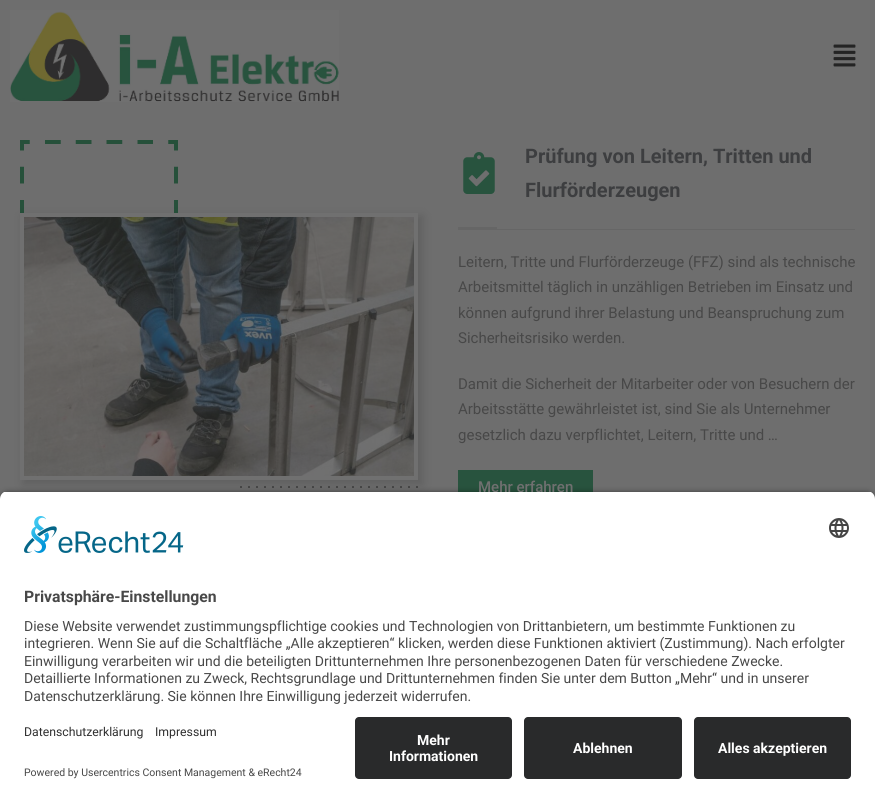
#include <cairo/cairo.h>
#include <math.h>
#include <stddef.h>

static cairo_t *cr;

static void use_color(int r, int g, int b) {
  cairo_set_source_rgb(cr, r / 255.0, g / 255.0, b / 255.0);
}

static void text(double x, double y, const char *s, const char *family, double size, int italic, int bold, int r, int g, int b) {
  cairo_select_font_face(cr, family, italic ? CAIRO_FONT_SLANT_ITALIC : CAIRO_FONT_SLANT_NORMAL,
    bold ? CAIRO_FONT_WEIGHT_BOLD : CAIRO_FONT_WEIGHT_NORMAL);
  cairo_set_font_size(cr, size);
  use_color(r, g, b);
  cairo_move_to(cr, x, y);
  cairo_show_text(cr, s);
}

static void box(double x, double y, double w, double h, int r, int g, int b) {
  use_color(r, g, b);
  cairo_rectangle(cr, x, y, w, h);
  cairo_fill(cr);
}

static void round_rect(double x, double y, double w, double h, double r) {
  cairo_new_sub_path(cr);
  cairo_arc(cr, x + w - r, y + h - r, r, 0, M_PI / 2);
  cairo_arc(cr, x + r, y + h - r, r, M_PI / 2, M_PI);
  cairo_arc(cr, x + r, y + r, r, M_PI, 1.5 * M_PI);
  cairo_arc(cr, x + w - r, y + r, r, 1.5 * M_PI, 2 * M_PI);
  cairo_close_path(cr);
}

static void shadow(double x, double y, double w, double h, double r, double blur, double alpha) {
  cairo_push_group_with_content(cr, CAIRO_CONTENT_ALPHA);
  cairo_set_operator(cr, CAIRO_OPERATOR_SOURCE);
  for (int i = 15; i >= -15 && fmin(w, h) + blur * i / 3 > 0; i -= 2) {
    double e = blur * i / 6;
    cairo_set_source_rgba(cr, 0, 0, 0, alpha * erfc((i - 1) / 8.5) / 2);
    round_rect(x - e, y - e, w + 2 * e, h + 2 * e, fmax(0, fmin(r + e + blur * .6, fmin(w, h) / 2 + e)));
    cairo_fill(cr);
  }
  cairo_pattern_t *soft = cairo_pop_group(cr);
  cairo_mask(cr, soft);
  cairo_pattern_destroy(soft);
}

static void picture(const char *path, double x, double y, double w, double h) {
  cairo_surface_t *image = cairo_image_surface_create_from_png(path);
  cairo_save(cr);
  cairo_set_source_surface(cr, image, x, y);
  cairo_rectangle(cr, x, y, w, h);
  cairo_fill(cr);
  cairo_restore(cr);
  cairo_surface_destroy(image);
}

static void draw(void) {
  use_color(110, 110, 110);
  cairo_paint(cr);
  picture("img_01.png", 10, 10, 329, 92);
  picture("img_02.png", 833, 44, 23, 23);
  picture("img_03.png", 20, 140, 158, 73);
  picture("img_05.png", 240, 486, 178, 2);
  use_color(36, 36, 36);
  shadow(23, 216, 400, 269, 0, 5, 0.2);
  cairo_rectangle(cr, 22, 215, 394, 263);
  use_color(112, 112, 112);
  cairo_set_line_width(cr, 4);
  cairo_stroke(cr);
  picture("img_04.png", 24, 217, 390, 259);
  picture("img_06.png", 463, 152, 32, 42);
  box(458, 229, 397, 1, 102, 102, 102);
  box(458, 227, 39, 2, 102, 102, 102);
  box(458, 470, 135, 22, 40, 83, 62);
  use_color(0, 0, 0);
  shadow(0, 494, 875, 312, 8, 3.5, 0.8);
  box(0, 709, 875, 94, 255, 255, 255);
  use_color(41, 42, 43);
  round_rect(355, 717, 157, 62, 4);
  cairo_fill(cr);
  round_rect(524, 717, 158, 62, 4);
  cairo_fill(cr);
  round_rect(694, 717, 157, 62, 4);
  cairo_fill(cr);
  text(525, 163, "Prüfung von Leitern, Tritten und", "Roboto", 20, 0, 1, 61, 62, 64);
  text(525, 197, "Flurförderzeugen", "Roboto", 20, 0, 1, 61, 62, 64);
  text(458, 267, "Leitern, Tritte und Flurförderzeuge (FFZ) sind als technische", "Roboto", 15, 0, 0, 72, 72, 72);
  text(458, 292, "Arbeitsmittel täglich in unzähligen Betrieben im Einsatz und", "Roboto", 15, 0, 0, 72, 72, 72);
  text(458, 318, "können aufgrund ihrer Belastung und Beanspruchung zum", "Roboto", 15, 0, 0, 72, 72, 72);
  text(458, 343, "Sicherheitsrisiko werden.", "Roboto", 15, 0, 0, 72, 72, 72);
  text(458, 389, "Damit die Sicherheit der Mitarbeiter oder von Besuchern der", "Roboto", 15, 0, 0, 72, 72, 72);
  text(458, 414, "Arbeitsstätte gewährleistet ist, sind Sie als Unternehmer", "Roboto", 15, 0, 0, 72, 72, 72);
  text(458, 440, "gesetzlich dazu verpflichtet, Leitern, Tritte und …", "Roboto", 15, 0, 0, 72, 72, 72);
  text(478, 492, "Mehr erfahren", "Roboto Medium", 15, 0, 0, 112, 112, 112);
  cairo_save(cr);
  cairo_new_path(cr);
  cairo_move_to(cr, 8, 491);
  cairo_line_to(cr, 867, 491);
  cairo_curve_to(cr, 871.5, 491, 875, 494.5, 875, 499);
  cairo_line_to(cr, 875, 709);
  cairo_line_to(cr, 0, 709);
  cairo_line_to(cr, 0, 499);
  cairo_curve_to(cr, 0, 494.5, 3.5, 491, 8, 491);
  cairo_close_path(cr);
  cairo_clip(cr);
  box(0, 492, 875, 217, 255, 255, 255);
  cairo_restore(cr);
  picture("img_07.png", 24, 516, 160, 37);
  picture("img_08.png", 829, 518, 20, 20);
  text(24, 602, "Privatsphäre-Einstellungen", "Roboto", 15.75, 0, 1, 72, 72, 72);
  text(24, 631, "Diese Website verwendet zustimmungspflichtige cookies und Technologien von Drittanbietern, um bestimmte Funktionen zu", "Roboto", 14, 0, 0, 72, 72, 72);
  text(24, 648, "integrieren. Wenn Sie auf die Schaltfläche „Alle akzeptieren“ klicken, werden diese Funktionen aktiviert (Zustimmung). Nach erfolgter", "Roboto", 14, 0, 0, 72, 72, 72);
  text(24, 666, "Einwilligung verarbeiten wir und die beteiligten Drittunternehmen Ihre personenbezogenen Daten für verschiedene Zwecke.", "Roboto", 14, 0, 0, 72, 72, 72);
  text(24, 683, "Detaillierte Informationen zu Zweck, Rechtsgrundlage und Drittunternehmen finden Sie unter dem Button „Mehr“ und in unserer", "Roboto", 14, 0, 0, 72, 72, 72);
  text(24, 701, "Datenschutzerklärung. Sie können Ihre Einwilligung jederzeit widerrufen.", "Roboto", 14, 0, 0, 72, 72, 72);
  text(24, 736, "Datenschutzerklärung", "Roboto", 12.25, 0, 0, 48, 48, 48);
  text(155, 736, "Impressum", "Roboto", 12.25, 0, 0, 48, 48, 48);
  text(24, 776, "Powered by Usercentrics Consent Management & eRecht24", "Roboto", 10.5, 0, 0, 72, 72, 72);
  text(417, 745, "Mehr", "Roboto", 14, 0, 1, 255, 255, 255);
  text(389, 761, "Informationen", "Roboto", 14, 0, 1, 255, 255, 255);
  text(573, 753, "Ablehnen", "Roboto", 14, 0, 1, 255, 255, 255);
  text(718, 753, "Alles akzeptieren", "Roboto", 14, 0, 1, 255, 255, 255);
}

int main(void) {
  cairo_surface_t *surface = cairo_image_surface_create(CAIRO_FORMAT_RGB24, 875, 803);
  cr = cairo_create(surface);
  cairo_font_options_t *options = cairo_font_options_create();
  cairo_font_options_set_hint_metrics(options, CAIRO_HINT_METRICS_OFF);
  cairo_font_options_set_hint_style(options, CAIRO_HINT_STYLE_NONE);
  cairo_set_font_options(cr, options);
  cairo_set_miter_limit(cr, 4);
  draw();
  cairo_surface_write_to_png(surface, "out.png");
  cairo_font_options_destroy(options);
  cairo_destroy(cr);
  cairo_surface_destroy(surface);
  return 0;
}
